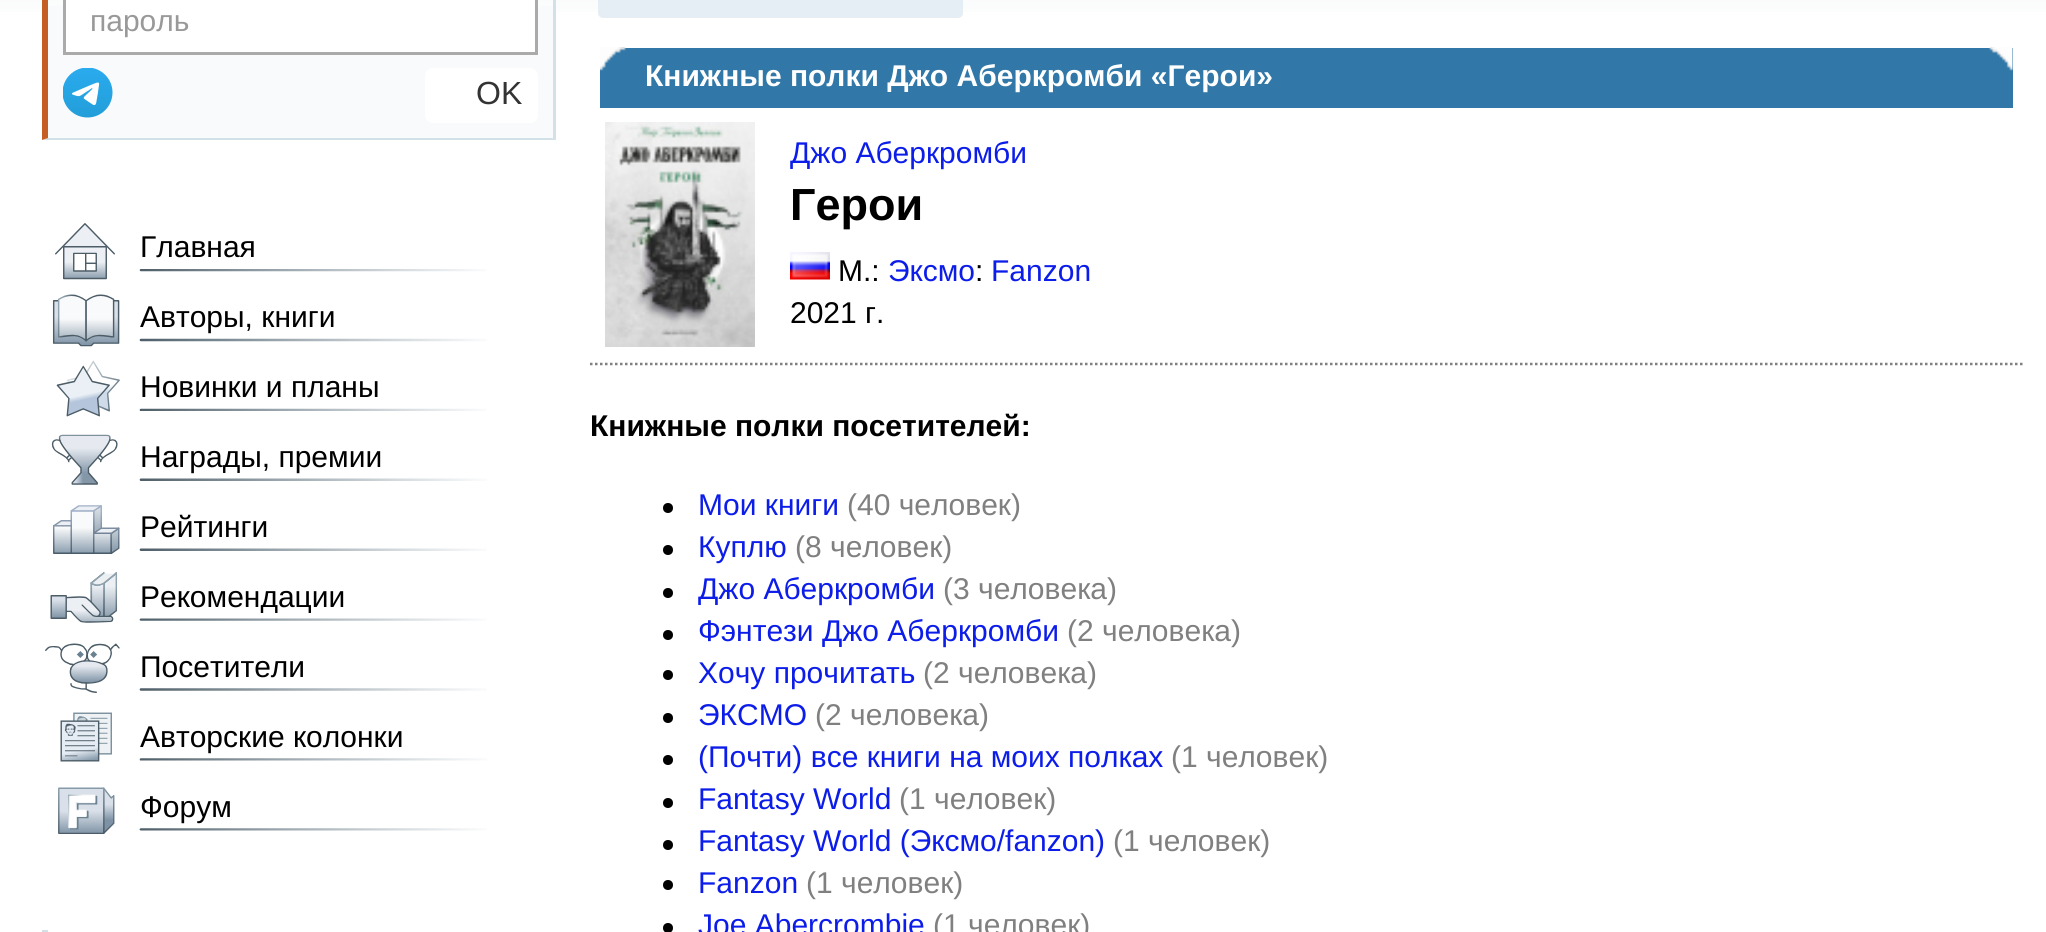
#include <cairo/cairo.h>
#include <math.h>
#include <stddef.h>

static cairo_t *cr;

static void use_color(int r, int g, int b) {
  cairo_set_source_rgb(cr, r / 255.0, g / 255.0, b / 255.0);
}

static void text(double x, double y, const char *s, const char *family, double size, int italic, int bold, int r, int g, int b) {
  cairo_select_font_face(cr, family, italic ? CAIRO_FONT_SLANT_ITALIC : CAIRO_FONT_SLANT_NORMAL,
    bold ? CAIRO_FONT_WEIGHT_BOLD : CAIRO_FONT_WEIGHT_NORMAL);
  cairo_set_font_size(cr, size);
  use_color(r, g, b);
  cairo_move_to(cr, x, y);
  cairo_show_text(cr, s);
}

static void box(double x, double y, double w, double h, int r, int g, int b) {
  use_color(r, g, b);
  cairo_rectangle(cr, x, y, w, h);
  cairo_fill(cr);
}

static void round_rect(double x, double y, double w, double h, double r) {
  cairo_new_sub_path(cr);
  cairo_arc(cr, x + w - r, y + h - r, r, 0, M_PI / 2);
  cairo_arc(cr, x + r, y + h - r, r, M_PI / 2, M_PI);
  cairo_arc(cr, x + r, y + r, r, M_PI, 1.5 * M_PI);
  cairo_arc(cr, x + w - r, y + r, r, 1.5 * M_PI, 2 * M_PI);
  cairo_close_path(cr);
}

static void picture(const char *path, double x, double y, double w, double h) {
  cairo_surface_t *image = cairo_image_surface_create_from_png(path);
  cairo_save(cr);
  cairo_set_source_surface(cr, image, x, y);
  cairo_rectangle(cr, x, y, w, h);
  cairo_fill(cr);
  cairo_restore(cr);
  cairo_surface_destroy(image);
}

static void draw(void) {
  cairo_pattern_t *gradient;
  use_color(255, 255, 255);
  cairo_paint(cr);
  gradient = cairo_pattern_create_linear(1024, -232, 1024, 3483);
  cairo_pattern_add_color_stop_rgba(gradient, 0, 0.839, 0.867, 0.89, 1);
  cairo_pattern_add_color_stop_rgba(gradient, 0.07, 1, 1, 1, 1);
  cairo_set_source(cr, gradient);
  cairo_pattern_destroy(gradient);
  cairo_rectangle(cr, 0, 0, 2046, 12);
  cairo_fill(cr);
  box(43, 6, 510, 134, 249, 250, 251);
  box(553, 0, 3, 140, 210, 224, 232);
  cairo_new_path(cr);
  cairo_move_to(cr, 555, 140);
  cairo_line_to(cr, 42, 140);
  cairo_line_to(cr, 48, 138);
  cairo_line_to(cr, 552, 138);
  cairo_close_path(cr);
  cairo_fill(cr);
  use_color(196, 94, 36);
  cairo_new_path(cr);
  cairo_move_to(cr, 42, 140);
  cairo_line_to(cr, 42, -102);
  cairo_line_to(cr, 48, -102);
  cairo_line_to(cr, 48, 138);
  cairo_close_path(cr);
  cairo_fill(cr);
  use_color(255, 255, 255);
  cairo_rectangle(cr, 64.5, -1.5, 472, 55);
  cairo_fill_preserve(cr);
  use_color(170, 170, 170);
  cairo_set_line_width(cr, 3);
  cairo_stroke(cr);
  picture("img_01.png", 63, 68, 50, 50);
  use_color(255, 255, 255);
  round_rect(425, 68, 113, 55, 8);
  cairo_fill(cr);
  picture("img_02.png", 55, 223, 432, 57);
  picture("img_03.png", 52, 294, 435, 53);
  picture("img_04.png", 56, 360, 431, 57);
  picture("img_05.png", 51, 434, 436, 51);
  picture("img_06.png", 53, 505, 434, 49);
  picture("img_07.png", 50, 572, 437, 51);
  picture("img_08.png", 45, 643, 442, 50);
  picture("img_09.png", 60, 712, 427, 50);
  picture("img_10.png", 58, 787, 429, 47);
  use_color(210, 224, 232);
  cairo_new_path(cr);
  cairo_move_to(cr, 42, 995);
  cairo_line_to(cr, 42, 930);
  cairo_line_to(cr, 48, 930);
  cairo_line_to(cr, 48, 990);
  cairo_close_path(cr);
  cairo_fill(cr);
  use_color(230, 238, 245);
  round_rect(598, -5, 365, 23, 5);
  cairo_fill(cr);
  box(600, 48, 1413, 60, 49, 120, 168);
  picture("img_11.png", 600, 47, 26, 24);
  picture("img_12.png", 1989, 47, 24, 24);
  cairo_new_path(cr);
  cairo_move_to(cr, 590, 364);
  cairo_line_to(cr, 2022.5, 364);
  use_color(128, 128, 128);
  cairo_set_line_width(cr, 2.5);
  cairo_set_dash(cr, (double[]){2.5, 2.5}, 2, 0);
  cairo_stroke(cr);
  picture("img_13.png", 605, 122, 150, 225);
  picture("img_14.png", 790, 252, 40, 28);
  use_color(0, 0, 0);
  cairo_arc(cr, 668, 508, 5, 0, 2 * M_PI);
  cairo_fill(cr);
  cairo_arc(cr, 668, 550, 5, 0, 2 * M_PI);
  cairo_fill(cr);
  cairo_arc(cr, 668, 593, 5, 0, 2 * M_PI);
  cairo_fill(cr);
  cairo_arc(cr, 668, 635, 5, 0, 2 * M_PI);
  cairo_fill(cr);
  cairo_arc(cr, 668, 675, 5, 0, 2 * M_PI);
  cairo_fill(cr);
  cairo_arc(cr, 668, 718, 5, 0, 2 * M_PI);
  cairo_fill(cr);
  cairo_arc(cr, 668, 760, 5, 0, 2 * M_PI);
  cairo_fill(cr);
  cairo_arc(cr, 668, 803, 5, 0, 2 * M_PI);
  cairo_fill(cr);
  cairo_arc(cr, 668, 845, 5, 0, 2 * M_PI);
  cairo_fill(cr);
  cairo_arc(cr, 668, 885, 5, 0, 2 * M_PI);
  cairo_fill(cr);
  cairo_arc(cr, 668, 928, 5, 0, 2 * M_PI);
  cairo_fill(cr);
  text(90, 31, "пароль", "Liberation Sans", 30, 0, 0, 153, 153, 153);
  text(476, 104, "OK", "Liberation Sans", 32, 0, 0, 51, 51, 51);
  text(140, 257, "Главная", "Liberation Sans", 30, 0, 0, 0, 0, 0);
  text(140, 327, "Авторы, книги", "Liberation Sans", 30, 0, 0, 0, 0, 0);
  text(140, 397, "Новинки и планы", "Liberation Sans", 30, 0, 0, 0, 0, 0);
  text(140, 467, "Награды, премии", "Liberation Sans", 30, 0, 0, 0, 0, 0);
  text(140, 537, "Рейтинги", "Liberation Sans", 30, 0, 0, 0, 0, 0);
  text(140, 607, "Рекомендации", "Liberation Sans", 30, 0, 0, 0, 0, 0);
  text(140, 677, "Посетители", "Liberation Sans", 30, 0, 0, 0, 0, 0);
  text(140, 747, "Авторские колонки", "Liberation Sans", 30, 0, 0, 0, 0, 0);
  text(140, 817, "Форум", "Liberation Sans", 30, 0, 0, 0, 0, 0);
  text(645, 86, "Книжные полки Джо Аберкромби «Герои»", "Liberation Sans", 30, 0, 1, 255, 255, 255);
  text(790, 163, "Джо Аберкромби", "Liberation Sans", 30, 0, 0, 12, 29, 233);
  text(790, 220, "Герои", "Liberation Sans", 45, 0, 1, 0, 0, 0);
  text(838, 281, "М.:", "Liberation Sans", 30, 0, 0, 0, 0, 0);
  text(888, 281, "Эксмо", "Liberation Sans", 30, 0, 0, 12, 29, 233);
  text(975, 281, ":", "Liberation Sans", 30, 0, 0, 0, 0, 0);
  text(991, 281, "Fanzon", "Liberation Sans", 30, 0, 0, 12, 29, 233);
  text(790, 323, "2021 г.", "Liberation Sans", 30, 0, 0, 0, 0, 0);
  text(590, 436, "Книжные полки посетителей:", "Liberation Sans", 30, 0, 1, 0, 0, 0);
  text(698, 515, "Мои книги", "Liberation Sans", 30, 0, 0, 12, 29, 233);
  text(847, 515, "(40 человек)", "Liberation Sans", 30, 0, 0, 128, 128, 128);
  text(698, 557, "Куплю", "Liberation Sans", 30, 0, 0, 12, 29, 233);
  text(795, 557, "(8 человек)", "Liberation Sans", 30, 0, 0, 128, 128, 128);
  text(698, 599, "Джо Аберкромби", "Liberation Sans", 30, 0, 0, 12, 29, 233);
  text(943, 599, "(3 человека)", "Liberation Sans", 30, 0, 0, 128, 128, 128);
  text(698, 641, "Фэнтези Джо Аберкромби", "Liberation Sans", 30, 0, 0, 12, 29, 233);
  text(1067, 641, "(2 человека)", "Liberation Sans", 30, 0, 0, 128, 128, 128);
  text(698, 683, "Хочу прочитать", "Liberation Sans", 30, 0, 0, 12, 29, 233);
  text(923, 683, "(2 человека)", "Liberation Sans", 30, 0, 0, 128, 128, 128);
  text(698, 725, "ЭКСМО", "Liberation Sans", 30, 0, 0, 12, 29, 233);
  text(815, 725, "(2 человека)", "Liberation Sans", 30, 0, 0, 128, 128, 128);
  text(698, 767, "(Почти) все книги на моих полках", "Liberation Sans", 30, 0, 0, 12, 29, 233);
  text(1171, 767, "(1 человек)", "Liberation Sans", 30, 0, 0, 128, 128, 128);
  text(698, 809, "Fantasy World", "Liberation Sans", 30, 0, 0, 12, 29, 233);
  text(899, 809, "(1 человек)", "Liberation Sans", 30, 0, 0, 128, 128, 128);
  text(698, 851, "Fantasy World (Эксмо/fanzon)", "Liberation Sans", 30, 0, 0, 12, 29, 233);
  text(1113, 851, "(1 человек)", "Liberation Sans", 30, 0, 0, 128, 128, 128);
  text(698, 893, "Fanzon", "Liberation Sans", 30, 0, 0, 12, 29, 233);
  text(806, 893, "(1 человек)", "Liberation Sans", 30, 0, 0, 128, 128, 128);
  text(698, 935, "Joe Abercrombie", "Liberation Sans", 30, 0, 0, 12, 29, 233);
  text(933, 935, "(1 человек)", "Liberation Sans", 30, 0, 0, 128, 128, 128);
}

int main(void) {
  cairo_surface_t *surface = cairo_image_surface_create(CAIRO_FORMAT_RGB24, 2046, 932);
  cr = cairo_create(surface);
  cairo_font_options_t *options = cairo_font_options_create();
  cairo_font_options_set_hint_metrics(options, CAIRO_HINT_METRICS_OFF);
  cairo_font_options_set_hint_style(options, CAIRO_HINT_STYLE_NONE);
  cairo_set_font_options(cr, options);
  cairo_set_miter_limit(cr, 4);
  draw();
  cairo_surface_write_to_png(surface, "out.png");
  cairo_font_options_destroy(options);
  cairo_destroy(cr);
  cairo_surface_destroy(surface);
  return 0;
}
